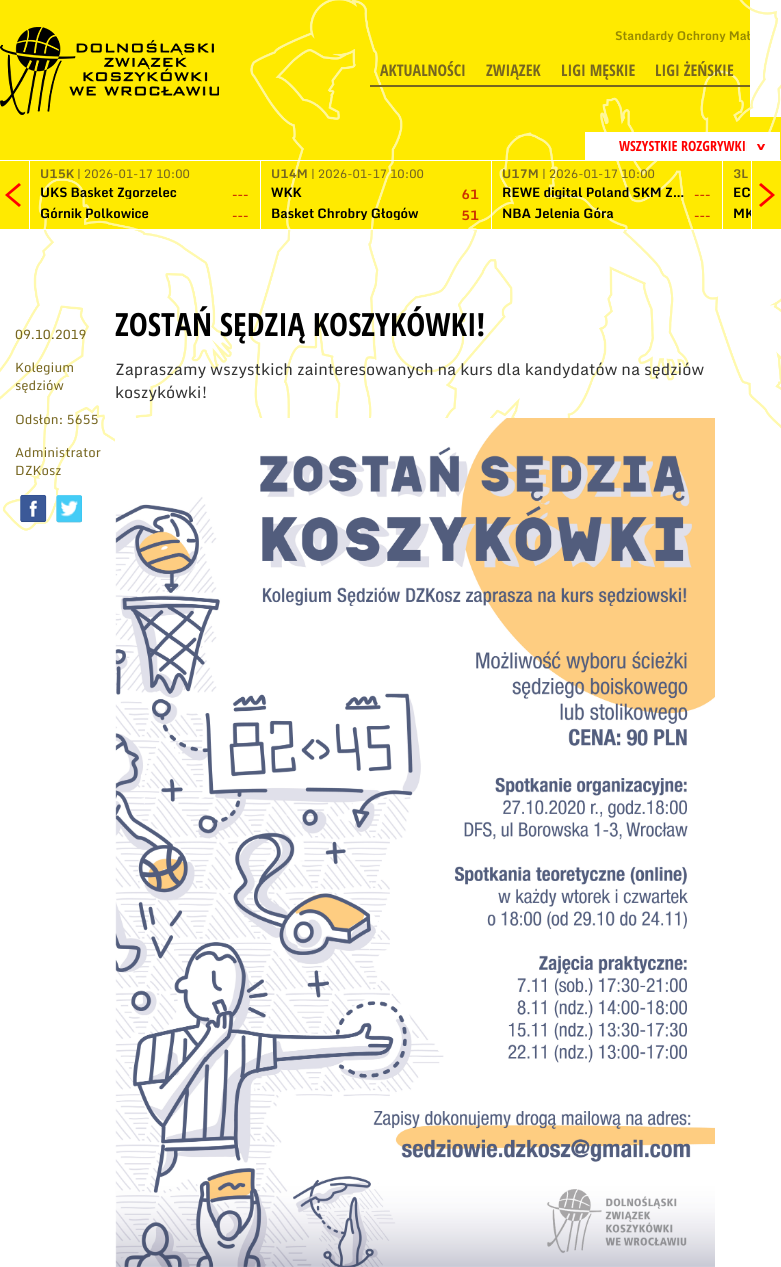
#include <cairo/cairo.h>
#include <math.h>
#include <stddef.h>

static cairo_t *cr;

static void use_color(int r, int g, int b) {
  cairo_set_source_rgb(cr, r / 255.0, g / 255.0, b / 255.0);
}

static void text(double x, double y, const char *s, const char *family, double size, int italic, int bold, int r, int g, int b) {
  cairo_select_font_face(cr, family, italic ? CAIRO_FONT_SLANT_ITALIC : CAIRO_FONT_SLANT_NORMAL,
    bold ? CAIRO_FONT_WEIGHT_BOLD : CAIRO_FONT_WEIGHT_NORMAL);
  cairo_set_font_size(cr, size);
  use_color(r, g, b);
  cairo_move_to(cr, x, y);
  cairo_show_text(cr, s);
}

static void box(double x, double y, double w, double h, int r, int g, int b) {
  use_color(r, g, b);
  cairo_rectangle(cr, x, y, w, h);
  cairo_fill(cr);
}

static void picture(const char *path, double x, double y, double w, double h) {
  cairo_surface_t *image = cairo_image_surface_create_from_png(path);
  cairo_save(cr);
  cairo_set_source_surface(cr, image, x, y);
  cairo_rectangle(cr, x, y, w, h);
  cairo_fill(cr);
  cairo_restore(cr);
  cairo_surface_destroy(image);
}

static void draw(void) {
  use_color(255, 255, 255);
  cairo_paint(cr);
  box(0, 0, 750, 117, 255, 234, 0);
  box(0, 117, 781, 112, 255, 234, 0);
  picture("img_01.png", 0, 0, 781, 531);
  picture("img_02.png", 0, 27, 219, 88);
  box(370, 85, 380, 2, 118, 102, 32);
  box(585, 132, 195, 28, 255, 255, 255);
  picture("img_03.png", 746, 142, 20, 9);
  picture("img_04.png", 0, 160, 30, 70);
  box(30, 160, 721, 1, 255, 255, 255);
  box(260, 160, 1, 70, 255, 255, 255);
  box(43, 229, 98, 1, 255, 255, 255);
  box(491, 160, 1, 70, 255, 255, 255);
  box(288, 229, 189, 1, 255, 255, 255);
  box(722, 160, 1, 70, 255, 255, 255);
  box(624, 229, 70, 1, 255, 255, 255);
  picture("img_05.png", 751, 160, 30, 70);
  picture("img_06.png", 19, 494, 28, 29);
  picture("img_07.png", 55, 494, 27, 29);
  picture("img_08.png", 115, 418, 600, 849);
  cairo_save(cr);
  cairo_rectangle(cr, 615, 30, 135, 12);
  cairo_clip(cr);
  text(615, 40, "Standardy Ochrony Mał", "Monda", 12, 0, 1, 151, 138, 0);
  cairo_restore(cr);
  text(380, 76, "AKTUALNOŚCI", "Open Sans Condensed", 16, 0, 1, 118, 102, 32);
  text(486, 76, "ZWIĄZEK", "Open Sans Condensed", 16, 0, 1, 118, 102, 32);
  text(561, 76, "LIGI MĘSKIE", "Open Sans Condensed", 16, 0, 1, 118, 102, 32);
  text(655, 76, "LIGI ŻEŃSKIE", "Open Sans Condensed", 16, 0, 1, 118, 102, 32);
  text(619, 151, "WSZYSTKIE ROZGRYWKI", "Open Sans Condensed", 14, 0, 1, 255, 0, 0);
  text(40, 178, "U15K", "Monda", 12, 0, 1, 118, 102, 32);
  text(77, 178, "| 2026-01-17 10:00", "Monda", 12, 0, 0, 118, 102, 32);
  cairo_save(cr);
  cairo_rectangle(cr, 40, 186, 185, 13);
  cairo_clip(cr);
  text(40, 197, "UKS Basket Zgorzelec", "Monda", 13, 0, 1, 0, 0, 0);
  cairo_restore(cr);
  text(232, 199, "---", "Monda", 13, 0, 1, 204, 51, 0);
  text(40, 218, "Górnik Polkowice", "Monda", 13, 0, 1, 0, 0, 0);
  text(232, 220, "---", "Monda", 13, 0, 1, 204, 51, 0);
  text(271, 178, "U14M", "Monda", 12, 0, 1, 118, 102, 32);
  text(311, 178, "| 2026-01-17 10:00", "Monda", 12, 0, 0, 118, 102, 32);
  text(271, 197, "WKK", "Monda", 13, 0, 1, 0, 0, 0);
  text(461, 199, "61", "Monda", 13, 0, 1, 204, 51, 0);
  cairo_save(cr);
  cairo_rectangle(cr, 271, 207, 185, 13);
  cairo_clip(cr);
  text(271, 218, "Basket Chrobry Głogów", "Monda", 13, 0, 1, 0, 0, 0);
  cairo_restore(cr);
  text(461, 220, "51", "Monda", 13, 0, 1, 204, 51, 0);
  text(502, 178, "U17M", "Monda", 12, 0, 1, 118, 102, 32);
  text(542, 178, "| 2026-01-17 10:00", "Monda", 12, 0, 0, 118, 102, 32);
  cairo_save(cr);
  cairo_rectangle(cr, 502, 186, 185, 13);
  cairo_clip(cr);
  text(502, 197, "REWE digital Poland SKM Z…", "Monda", 13, 0, 1, 0, 0, 0);
  cairo_restore(cr);
  text(694, 199, "---", "Monda", 13, 0, 1, 204, 51, 0);
  text(502, 218, "NBA Jelenia Góra", "Monda", 13, 0, 1, 0, 0, 0);
  text(694, 220, "---", "Monda", 13, 0, 1, 204, 51, 0);
  text(733, 178, "3L", "Monda", 12, 0, 1, 118, 102, 32);
  text(733, 197, "EC", "Monda", 13, 0, 1, 0, 0, 0);
  cairo_save(cr);
  cairo_rectangle(cr, 733, 207, 18, 13);
  cairo_clip(cr);
  text(733, 218, "MK", "Monda", 13, 0, 1, 0, 0, 0);
  cairo_restore(cr);
  text(15, 339, "09.10.2019", "Monda", 13, 0, 0, 118, 102, 32);
  text(15, 372, "Kolegium", "Monda", 13, 0, 0, 118, 102, 32);
  text(15, 390, "sędziów", "Monda", 13, 0, 0, 118, 102, 32);
  text(15, 424, "Odsłon: 5655", "Monda", 13, 0, 0, 118, 102, 32);
  text(15, 457, "Administrator", "Monda", 13, 0, 0, 118, 102, 32);
  text(15, 475, "DZKosz", "Monda", 13, 0, 0, 118, 102, 32);
  text(115, 336, "ZOSTAŃ SĘDZIĄ KOSZYKÓWKI!", "Open Sans Condensed", 32, 0, 1, 0, 0, 0);
  text(115, 375, "Zapraszamy wszystkich zainteresowanych na kurs dla kandydatów na sędziów", "Monda", 16, 0, 0, 51, 51, 51);
  text(115, 398, "koszykówki!", "Monda", 16, 0, 0, 51, 51, 51);
}

int main(void) {
  cairo_surface_t *surface = cairo_image_surface_create(CAIRO_FORMAT_RGB24, 781, 1267);
  cr = cairo_create(surface);
  cairo_font_options_t *options = cairo_font_options_create();
  cairo_font_options_set_hint_metrics(options, CAIRO_HINT_METRICS_OFF);
  cairo_font_options_set_hint_style(options, CAIRO_HINT_STYLE_NONE);
  cairo_set_font_options(cr, options);
  cairo_set_miter_limit(cr, 4);
  draw();
  cairo_surface_write_to_png(surface, "out.png");
  cairo_font_options_destroy(options);
  cairo_destroy(cr);
  cairo_surface_destroy(surface);
  return 0;
}
